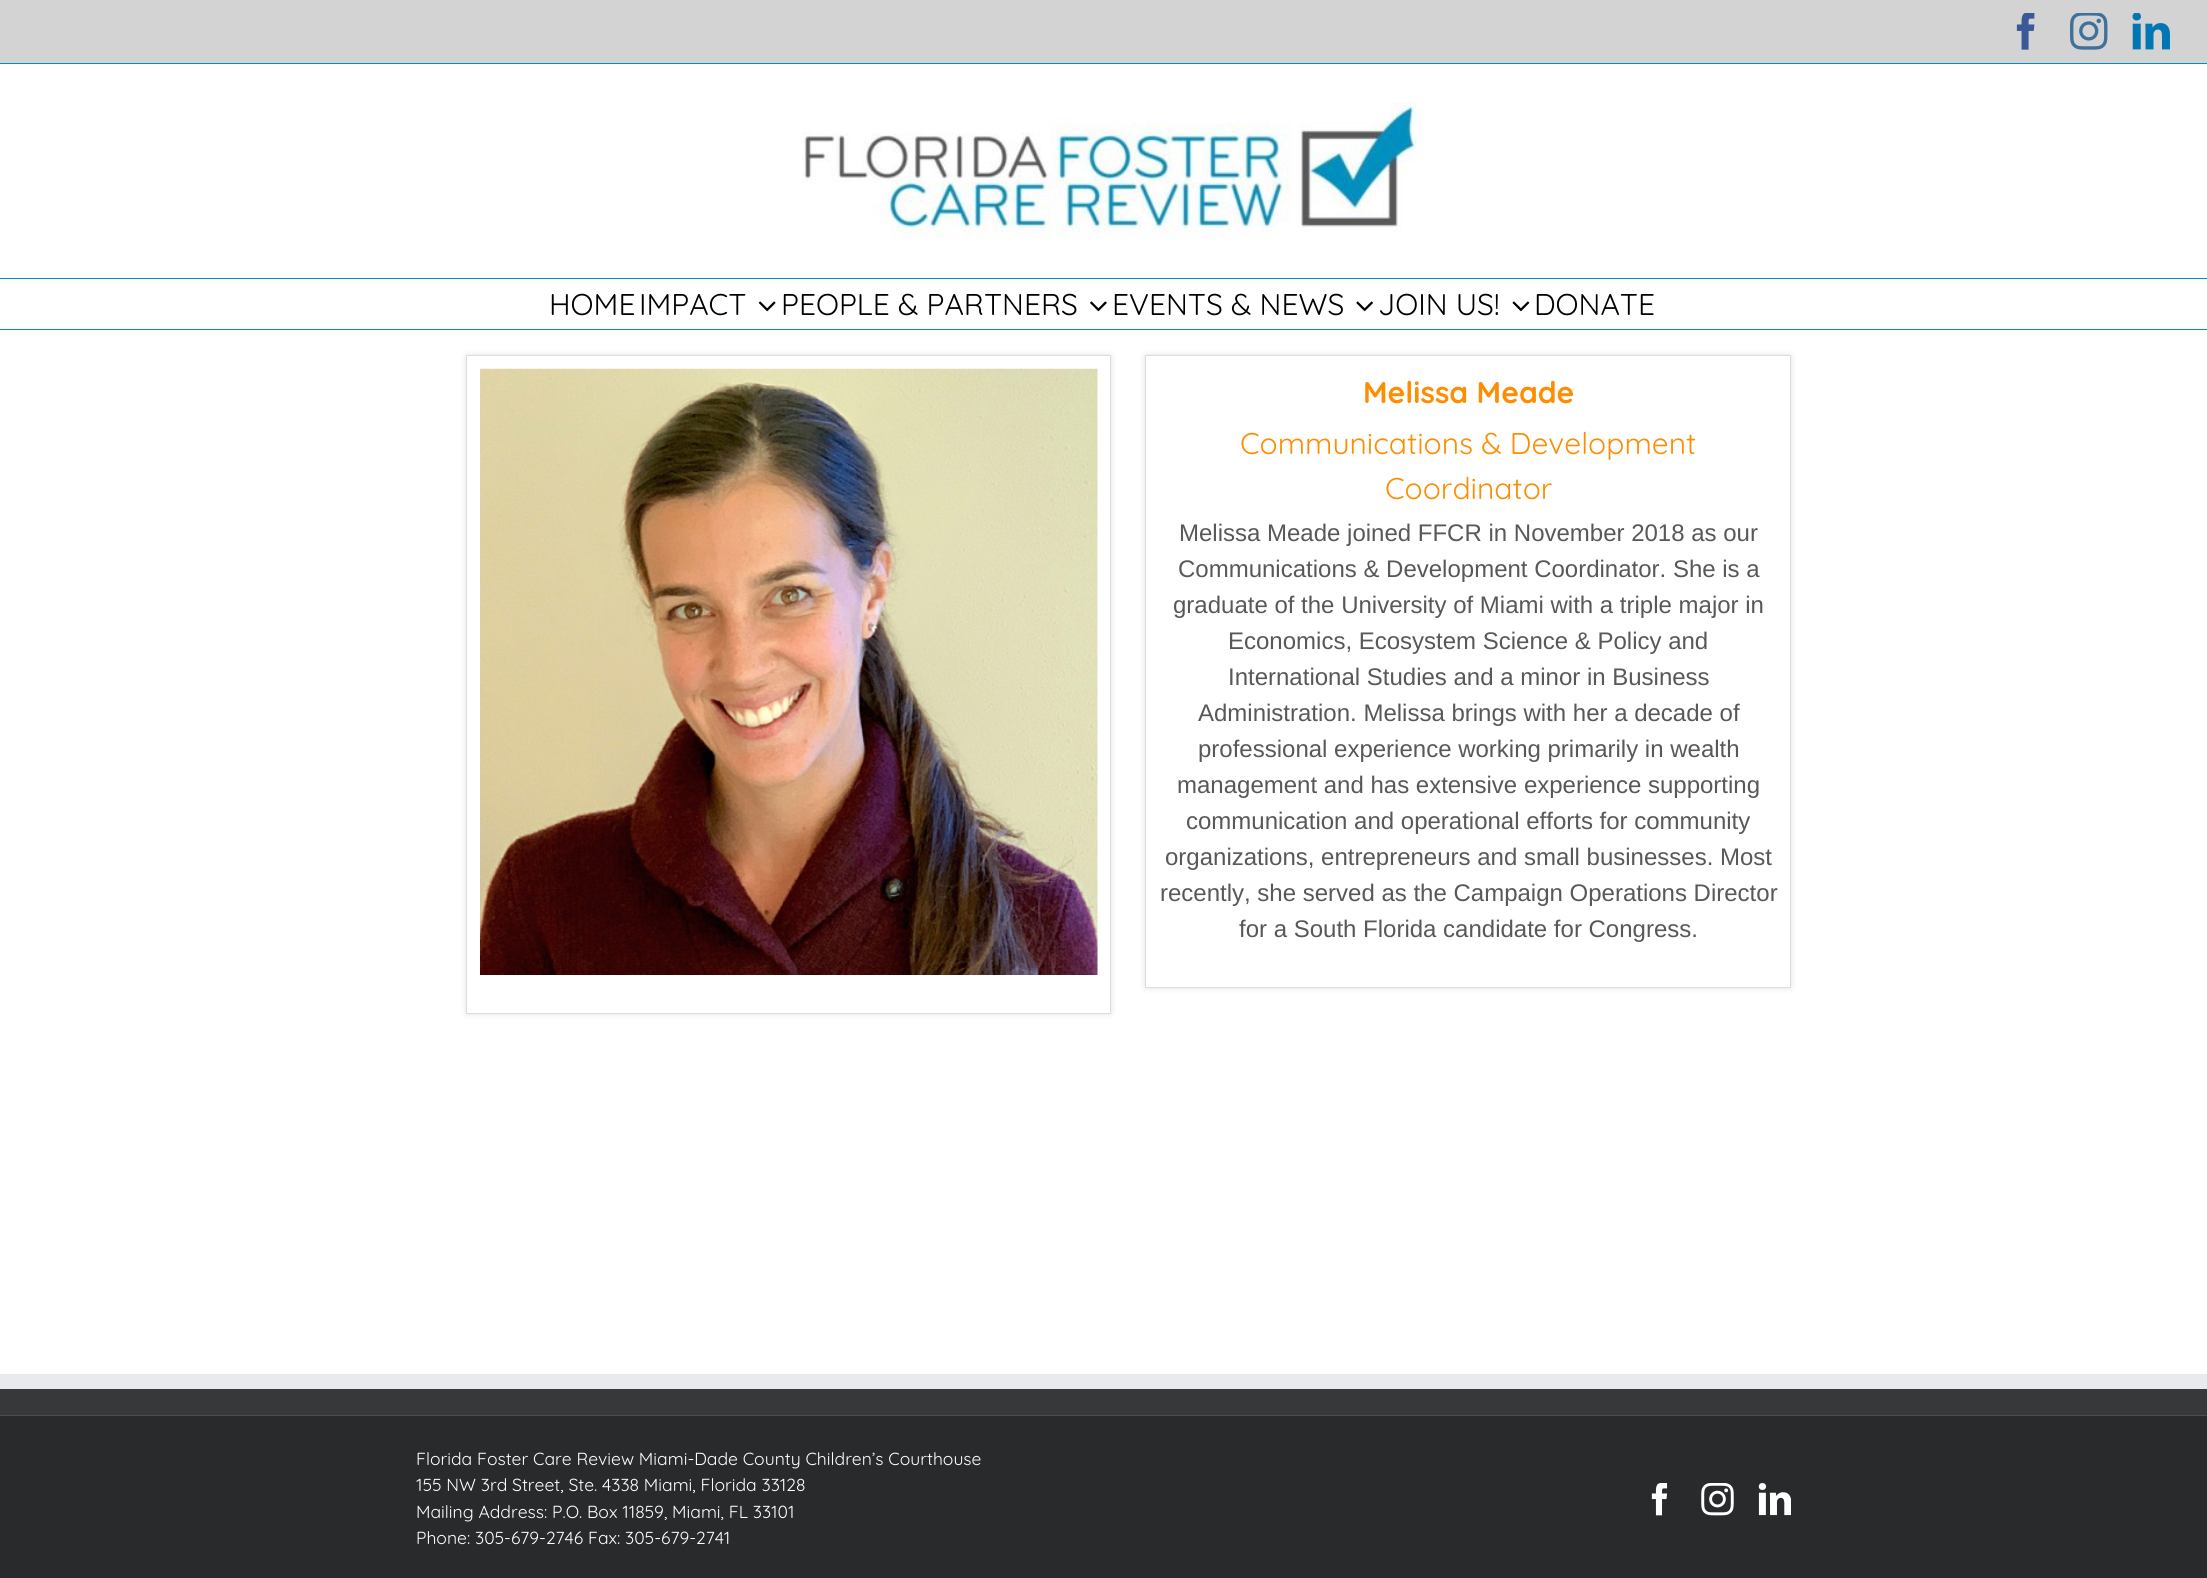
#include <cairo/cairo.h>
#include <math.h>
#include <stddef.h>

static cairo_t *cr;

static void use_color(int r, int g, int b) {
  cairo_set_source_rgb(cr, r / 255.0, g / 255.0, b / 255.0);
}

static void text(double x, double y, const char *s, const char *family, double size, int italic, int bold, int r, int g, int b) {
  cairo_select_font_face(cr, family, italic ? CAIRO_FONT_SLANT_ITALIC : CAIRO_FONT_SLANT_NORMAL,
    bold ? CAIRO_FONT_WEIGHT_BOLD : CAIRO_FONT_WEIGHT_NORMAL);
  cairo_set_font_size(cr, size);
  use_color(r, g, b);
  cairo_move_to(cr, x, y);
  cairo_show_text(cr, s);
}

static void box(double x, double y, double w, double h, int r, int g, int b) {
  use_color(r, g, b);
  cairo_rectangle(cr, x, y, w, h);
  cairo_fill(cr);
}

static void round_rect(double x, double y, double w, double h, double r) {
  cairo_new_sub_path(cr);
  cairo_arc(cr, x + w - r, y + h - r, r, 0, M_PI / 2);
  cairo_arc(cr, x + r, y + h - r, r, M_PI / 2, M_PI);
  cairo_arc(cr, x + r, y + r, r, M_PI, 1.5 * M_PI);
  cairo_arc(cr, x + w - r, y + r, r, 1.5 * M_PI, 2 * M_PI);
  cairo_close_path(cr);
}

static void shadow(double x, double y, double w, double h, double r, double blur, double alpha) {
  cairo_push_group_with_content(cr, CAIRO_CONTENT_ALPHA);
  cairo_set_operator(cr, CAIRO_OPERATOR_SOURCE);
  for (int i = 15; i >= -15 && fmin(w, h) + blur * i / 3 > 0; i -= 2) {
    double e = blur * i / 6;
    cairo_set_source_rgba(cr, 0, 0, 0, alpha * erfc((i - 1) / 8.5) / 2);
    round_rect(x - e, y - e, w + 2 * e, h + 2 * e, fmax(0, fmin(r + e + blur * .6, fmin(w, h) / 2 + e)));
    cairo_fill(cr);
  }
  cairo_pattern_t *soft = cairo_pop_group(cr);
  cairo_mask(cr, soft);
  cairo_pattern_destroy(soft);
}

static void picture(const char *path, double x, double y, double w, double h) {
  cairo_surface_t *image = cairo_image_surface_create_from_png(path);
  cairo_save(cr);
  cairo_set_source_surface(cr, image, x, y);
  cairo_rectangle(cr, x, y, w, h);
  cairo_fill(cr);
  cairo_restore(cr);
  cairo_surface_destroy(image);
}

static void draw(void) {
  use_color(255, 255, 255);
  cairo_paint(cr);
  box(0, 0, 2207, 63, 211, 211, 211);
  box(0, 63, 2207, 1, 0, 143, 190);
  picture("img_01.png", 2016, 13, 19, 37);
  picture("img_02.png", 2070, 13, 38, 37);
  picture("img_03.png", 2132, 13, 38, 37);
  box(0, 278, 2207, 1, 0, 143, 190);
  picture("img_04.png", 802, 102, 615, 137);
  box(0, 329, 2207, 1, 0, 143, 190);
  picture("img_05.png", 758, 301, 18, 11);
  picture("img_06.png", 1090, 301, 17, 11);
  picture("img_07.png", 1356, 301, 17, 11);
  picture("img_08.png", 1512, 301, 18, 11);
  use_color(226, 226, 226);
  shadow(466, 355, 645, 659, 0, 3, 1);
  use_color(255, 255, 255);
  cairo_rectangle(cr, 466.5, 355.5, 644, 658);
  cairo_fill_preserve(cr);
  use_color(221, 221, 221);
  cairo_set_line_width(cr, 1);
  cairo_stroke(cr);
  picture("img_09.png", 480, 368, 618, 607);
  use_color(226, 226, 226);
  shadow(1145, 355, 646, 633, 0, 3, 1);
  use_color(255, 255, 255);
  cairo_rectangle(cr, 1145.5, 355.5, 645, 632);
  cairo_fill_preserve(cr);
  use_color(221, 221, 221);
  cairo_stroke(cr);
  box(0, 1389, 2207, 26, 54, 56, 57);
  box(0, 1374, 2207, 15, 233, 234, 238);
  box(0, 1416, 2207, 162, 40, 42, 43);
  box(0, 1415, 2207, 1, 75, 76, 77);
  picture("img_10.png", 1651, 1483, 17, 33);
  picture("img_11.png", 1701, 1483, 33, 33);
  picture("img_12.png", 1758, 1483, 33, 33);
  text(549, 315, "HOME", "Quicksand", 30, 0, 0, 0, 0, 0);
  text(639, 315, "IMPACT", "Quicksand", 30, 0, 0, 0, 0, 0);
  text(781, 315, "PEOPLE & PARTNERS", "Quicksand", 30, 0, 0, 0, 0, 0);
  text(1112, 315, "EVENTS & NEWS", "Quicksand", 30, 0, 0, 0, 0, 0);
  text(1378, 315, "JOIN US!", "Quicksand", 30, 0, 0, 0, 0, 0);
  text(1534, 315, "DONATE", "Quicksand", 30, 0, 0, 0, 0, 0);
  text(1363, 403, "Melissa Meade", "Quicksand", 30, 0, 1, 255, 141, 2);
  text(1240, 454, "Communications & Development", "Quicksand", 30, 0, 0, 255, 141, 2);
  text(1385, 499, "Coordinator", "Quicksand", 30, 0, 0, 255, 141, 2);
  text(1179, 541, "Melissa Meade joined FFCR in November 2018 as our", "Liberation Sans", 24, 0, 0, 88, 88, 90);
  text(1178, 577, "Communications & Development Coordinator. She is a", "Liberation Sans", 24, 0, 0, 88, 88, 90);
  text(1173, 613, "graduate of the University of Miami with a triple major in", "Liberation Sans", 24, 0, 0, 88, 88, 90);
  text(1228, 649, "Economics, Ecosystem Science & Policy and", "Liberation Sans", 24, 0, 0, 88, 88, 90);
  text(1228, 685, "International Studies and a minor in Business", "Liberation Sans", 24, 0, 0, 88, 88, 90);
  text(1198, 721, "Administration. Melissa brings with her a decade of", "Liberation Sans", 24, 0, 0, 88, 88, 90);
  text(1198, 757, "professional experience working primarily in wealth", "Liberation Sans", 24, 0, 0, 88, 88, 90);
  text(1177, 793, "management and has extensive experience supporting", "Liberation Sans", 24, 0, 0, 88, 88, 90);
  text(1186, 829, "communication and operational efforts for community", "Liberation Sans", 24, 0, 0, 88, 88, 90);
  text(1165, 865, "organizations, entrepreneurs and small businesses. Most", "Liberation Sans", 24, 0, 0, 88, 88, 90);
  text(1160, 901, "recently, she served as the Campaign Operations Director", "Liberation Sans", 24, 0, 0, 88, 88, 90);
  text(1239, 937, "for a South Florida candidate for Congress.", "Liberation Sans", 24, 0, 0, 88, 88, 90);
  text(416, 1465, "Florida Foster Care Review Miami-Dade County Children’s Courthouse", "Quicksand", 17.5, 0, 0, 255, 255, 255);
  text(416, 1491, "155 NW 3rd Street, Ste. 4338 Miami, Florida 33128", "Quicksand", 17.5, 0, 0, 255, 255, 255);
  text(416, 1518, "Mailing Address: P.O. Box 11859, Miami, FL 33101", "Quicksand", 17.5, 0, 0, 255, 255, 255);
  text(416, 1544, "Phone: 305-679-2746 Fax: 305-679-2741", "Quicksand", 17.5, 0, 0, 255, 255, 255);
}

int main(void) {
  cairo_surface_t *surface = cairo_image_surface_create(CAIRO_FORMAT_RGB24, 2207, 1578);
  cr = cairo_create(surface);
  cairo_font_options_t *options = cairo_font_options_create();
  cairo_font_options_set_hint_metrics(options, CAIRO_HINT_METRICS_OFF);
  cairo_font_options_set_hint_style(options, CAIRO_HINT_STYLE_NONE);
  cairo_set_font_options(cr, options);
  cairo_set_miter_limit(cr, 4);
  draw();
  cairo_surface_write_to_png(surface, "out.png");
  cairo_font_options_destroy(options);
  cairo_destroy(cr);
  cairo_surface_destroy(surface);
  return 0;
}
